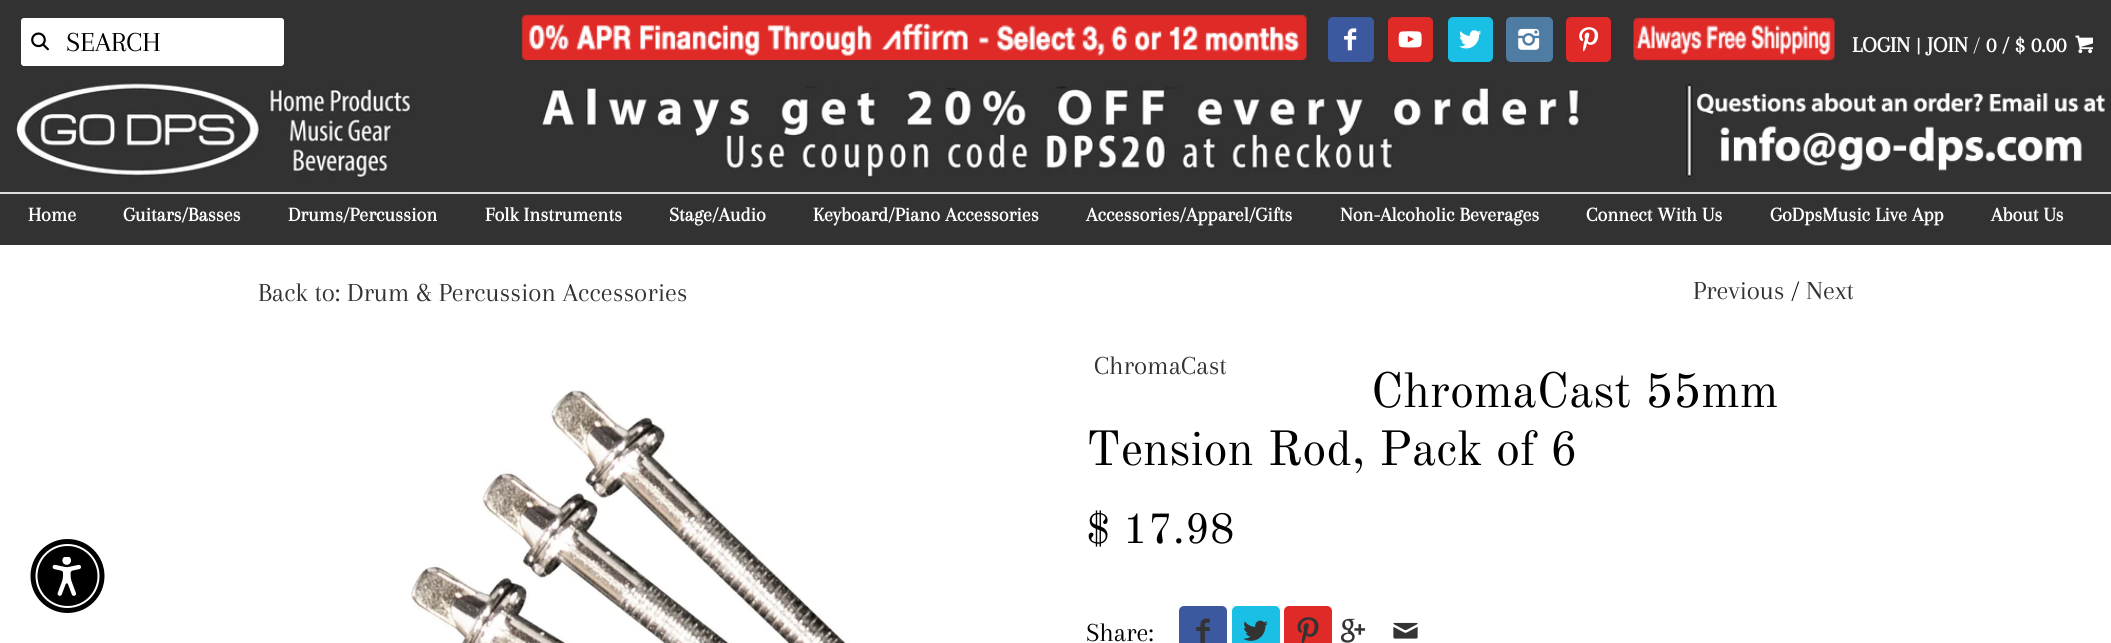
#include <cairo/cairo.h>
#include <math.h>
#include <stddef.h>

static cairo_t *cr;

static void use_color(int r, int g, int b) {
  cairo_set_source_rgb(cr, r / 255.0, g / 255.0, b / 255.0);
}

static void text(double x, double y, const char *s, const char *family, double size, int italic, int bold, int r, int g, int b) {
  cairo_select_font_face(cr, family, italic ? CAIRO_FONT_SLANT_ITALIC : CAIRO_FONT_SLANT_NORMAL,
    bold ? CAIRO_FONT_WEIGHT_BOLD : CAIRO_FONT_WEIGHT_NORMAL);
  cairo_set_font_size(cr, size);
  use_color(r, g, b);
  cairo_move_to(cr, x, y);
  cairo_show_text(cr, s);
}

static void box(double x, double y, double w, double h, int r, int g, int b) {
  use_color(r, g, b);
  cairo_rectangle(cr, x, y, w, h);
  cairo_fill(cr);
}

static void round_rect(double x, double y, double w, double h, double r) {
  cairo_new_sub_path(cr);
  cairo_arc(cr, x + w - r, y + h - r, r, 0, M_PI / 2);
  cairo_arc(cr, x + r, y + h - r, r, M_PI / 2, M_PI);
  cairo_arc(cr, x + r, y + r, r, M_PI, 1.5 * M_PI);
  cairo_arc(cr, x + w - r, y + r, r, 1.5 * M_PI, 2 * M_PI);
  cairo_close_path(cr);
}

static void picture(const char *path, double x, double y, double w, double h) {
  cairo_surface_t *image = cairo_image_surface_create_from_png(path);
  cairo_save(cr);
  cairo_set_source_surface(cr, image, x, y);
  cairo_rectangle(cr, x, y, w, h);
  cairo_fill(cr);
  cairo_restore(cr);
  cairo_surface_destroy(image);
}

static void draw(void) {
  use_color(255, 255, 255);
  cairo_paint(cr);
  box(0, 0, 2111, 245, 50, 50, 50);
  use_color(255, 255, 255);
  round_rect(18, 15, 269, 54, 6);
  cairo_fill_preserve(cr);
  use_color(50, 50, 50);
  cairo_set_line_width(cr, 6);
  cairo_stroke(cr);
  picture("img_01.png", 31, 32, 18, 19);
  picture("img_02.png", 521, 14, 786, 46);
  use_color(60, 89, 159);
  round_rect(1328, 17, 46, 45, 5);
  cairo_fill(cr);
  picture("img_03.png", 1344, 28, 13, 23);
  use_color(224, 42, 39);
  round_rect(1388, 17, 45, 45, 5);
  cairo_fill(cr);
  picture("img_04.png", 1398, 31, 24, 17);
  use_color(25, 191, 229);
  round_rect(1448, 17, 45, 45, 5);
  cairo_fill(cr);
  picture("img_05.png", 1459, 30, 23, 19);
  use_color(79, 124, 162);
  round_rect(1506, 17, 47, 45, 5);
  cairo_fill(cr);
  picture("img_06.png", 1518, 28, 22, 22);
  use_color(224, 42, 39);
  round_rect(1566, 17, 45, 45, 5);
  cairo_fill(cr);
  picture("img_07.png", 1579, 27, 20, 25);
  picture("img_08.png", 1633, 17, 202, 44);
  picture("img_09.png", 2075, 35, 18, 19);
  picture("img_10.png", 16, 82, 2092, 97);
  box(0, 192, 2111, 2, 221, 221, 221);
  picture("img_11.png", 411, 390, 438, 253);
  use_color(60, 89, 159);
  round_rect(1179, 606, 48, 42, 5);
  cairo_fill(cr);
  picture("img_12.png", 1196, 618, 14, 25);
  use_color(25, 191, 229);
  round_rect(1232, 606, 48, 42, 5);
  cairo_fill(cr);
  picture("img_13.png", 1243, 620, 25, 21);
  use_color(224, 42, 39);
  round_rect(1284, 606, 48, 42, 5);
  cairo_fill(cr);
  picture("img_14.png", 1297, 617, 22, 26);
  picture("img_15.png", 1340, 618, 26, 25);
  picture("img_16.png", 1393, 622, 25, 17);
  use_color(0, 0, 0);
  cairo_arc(cr, 67.5, 576, 37, 0, 2 * M_PI);
  cairo_fill(cr);
  use_color(255, 255, 255);
  cairo_arc(cr, 67.5, 576, 32, 0, 2 * M_PI);
  cairo_fill(cr);
  use_color(0, 0, 0);
  cairo_arc(cr, 67.5, 576, 30, 0, 2 * M_PI);
  cairo_fill(cr);
  picture("img_17.png", 52, 557, 29, 39);
  text(66, 51, "SEARCH", "Arapey", 28.5, 0, 0, 0, 0, 0);
  text(1852, 52, "LOGIN", "Arapey", 22.5, 0, 1, 255, 255, 255);
  text(1916, 52, "|", "Arapey", 22.5, 0, 0, 255, 255, 255);
  text(1927, 52, "JOIN", "Arapey", 22.5, 0, 1, 255, 255, 255);
  text(1973, 52, "/", "Arapey", 22.5, 0, 0, 255, 255, 255);
  text(1986, 52, "0 / $ 0.00", "Arapey", 22.5, 0, 1, 255, 255, 255);
  text(28, 221, "Home", "Arapey", 20.25, 0, 1, 255, 255, 255);
  text(123, 221, "Guitars/Basses", "Arapey", 20.25, 0, 1, 255, 255, 255);
  text(288, 221, "Drums/Percussion", "Arapey", 20.25, 0, 1, 255, 255, 255);
  text(485, 221, "Folk Instruments", "Arapey", 20.25, 0, 1, 255, 255, 255);
  text(669, 221, "Stage/Audio", "Arapey", 20.25, 0, 1, 255, 255, 255);
  text(813, 221, "Keyboard/Piano Accessories", "Arapey", 20.25, 0, 1, 255, 255, 255);
  text(1086, 221, "Accessories/Apparel/Gifts", "Arapey", 20.25, 0, 1, 255, 255, 255);
  text(1340, 221, "Non-Alcoholic Beverages", "Arapey", 20.25, 0, 1, 255, 255, 255);
  text(1586, 221, "Connect With Us", "Arapey", 20.25, 0, 1, 255, 255, 255);
  text(1770, 221, "GoDpsMusic Live App", "Arapey", 20.25, 0, 1, 255, 255, 255);
  text(1991, 221, "About Us", "Arapey", 20.25, 0, 1, 255, 255, 255);
  text(258, 301, "Back to: Drum & Percussion Accessories", "Arapey", 27, 0, 0, 51, 51, 51);
  text(1693, 299, "Previous", "Arapey", 27, 0, 0, 51, 51, 51);
  text(1791, 299, "/", "Arapey", 27, 0, 0, 0, 0, 0);
  text(1806, 299, "Next", "Arapey", 27, 0, 0, 51, 51, 51);
  text(1094, 374, "ChromaCast", "Arapey", 27, 0, 0, 51, 51, 51);
  text(1371, 407, "ChromaCast 55mm", "Old Standard TT", 48.6, 0, 0, 0, 0, 0);
  text(1086, 465, "Tension Rod, Pack of 6", "Old Standard TT", 48.6, 0, 0, 0, 0, 0);
  text(1086, 543, "$ 17.98", "Old Standard TT", 43, 0, 0, 0, 0, 0);
  text(1086, 641, "Share:", "Arapey", 27, 0, 0, 0, 0, 0);
}

int main(void) {
  cairo_surface_t *surface = cairo_image_surface_create(CAIRO_FORMAT_RGB24, 2111, 643);
  cr = cairo_create(surface);
  cairo_font_options_t *options = cairo_font_options_create();
  cairo_font_options_set_hint_metrics(options, CAIRO_HINT_METRICS_OFF);
  cairo_font_options_set_hint_style(options, CAIRO_HINT_STYLE_NONE);
  cairo_set_font_options(cr, options);
  cairo_set_miter_limit(cr, 4);
  draw();
  cairo_surface_write_to_png(surface, "out.png");
  cairo_font_options_destroy(options);
  cairo_destroy(cr);
  cairo_surface_destroy(surface);
  return 0;
}
